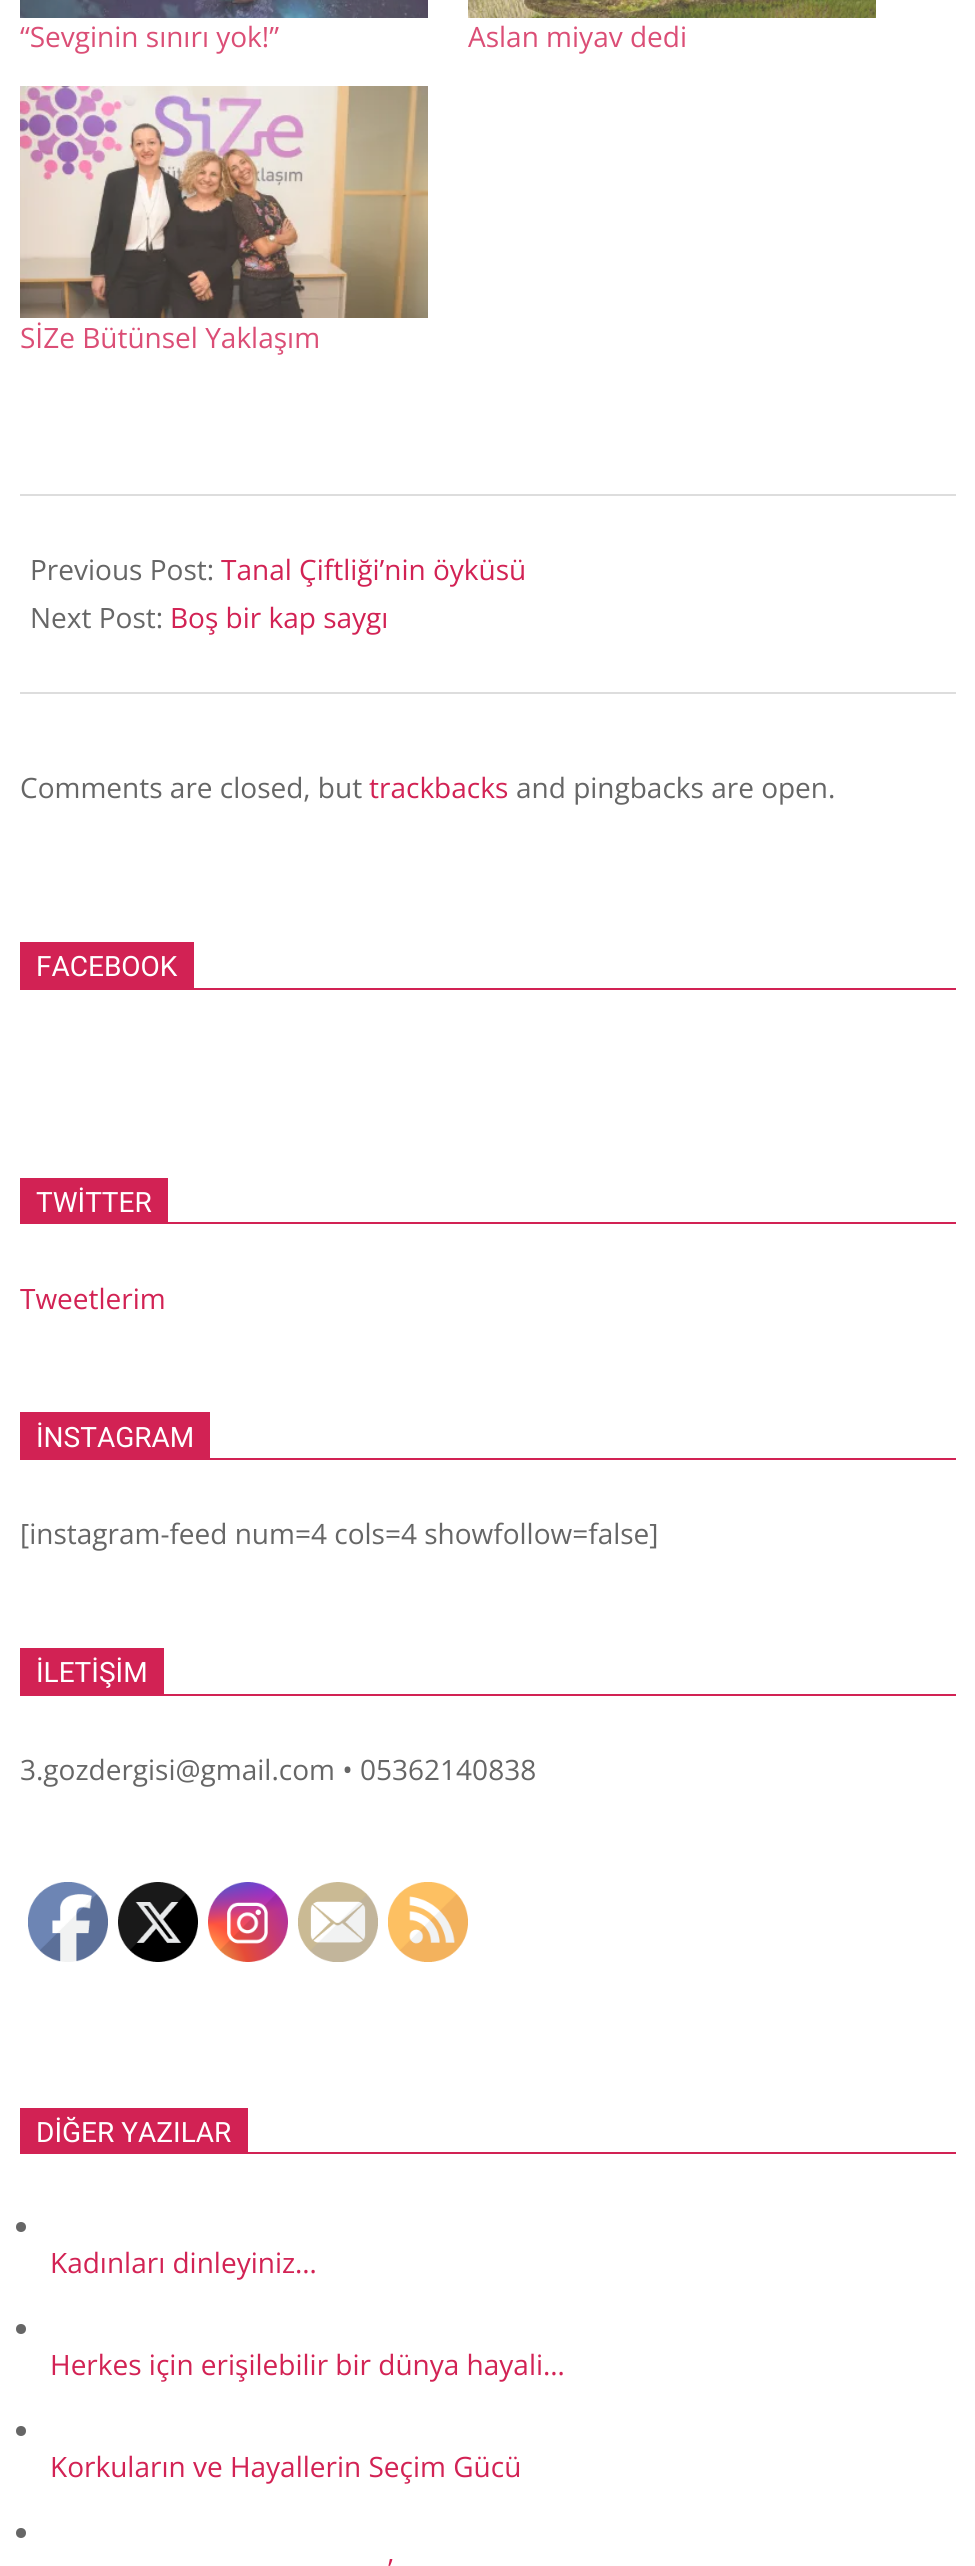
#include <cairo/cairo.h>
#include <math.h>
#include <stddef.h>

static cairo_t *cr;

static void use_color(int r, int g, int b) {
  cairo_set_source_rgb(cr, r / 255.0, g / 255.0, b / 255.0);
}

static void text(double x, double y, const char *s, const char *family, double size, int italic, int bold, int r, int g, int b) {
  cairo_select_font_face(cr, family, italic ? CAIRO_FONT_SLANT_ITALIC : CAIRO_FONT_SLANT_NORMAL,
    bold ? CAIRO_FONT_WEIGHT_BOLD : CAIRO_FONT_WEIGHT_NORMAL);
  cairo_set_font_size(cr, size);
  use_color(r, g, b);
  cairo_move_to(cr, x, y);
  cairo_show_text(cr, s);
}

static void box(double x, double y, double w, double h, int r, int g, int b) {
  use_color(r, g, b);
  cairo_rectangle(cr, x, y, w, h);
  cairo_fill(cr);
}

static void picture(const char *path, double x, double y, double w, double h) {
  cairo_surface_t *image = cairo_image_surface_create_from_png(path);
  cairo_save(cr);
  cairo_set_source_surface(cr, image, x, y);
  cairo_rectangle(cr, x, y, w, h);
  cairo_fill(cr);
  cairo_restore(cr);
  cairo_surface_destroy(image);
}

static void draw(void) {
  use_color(255, 255, 255);
  cairo_paint(cr);
  box(20, 494, 936, 2, 221, 221, 221);
  picture("img_01.png", 20, 0, 408, 18);
  picture("img_02.png", 468, 0, 408, 18);
  picture("img_03.png", 20, 86, 408, 232);
  box(20, 692, 936, 2, 221, 221, 221);
  box(20, 942, 174, 46, 210, 34, 84);
  box(20, 988, 936, 2, 210, 34, 84);
  box(20, 1178, 148, 44, 210, 34, 84);
  box(20, 1222, 936, 2, 210, 34, 84);
  box(20, 1412, 190, 46, 210, 34, 84);
  box(20, 1458, 936, 2, 210, 34, 84);
  box(20, 1648, 144, 46, 210, 34, 84);
  box(20, 1694, 936, 2, 210, 34, 84);
  picture("img_04.png", 28, 1882, 80, 80);
  picture("img_05.png", 118, 1882, 80, 80);
  picture("img_06.png", 208, 1882, 80, 80);
  picture("img_07.png", 298, 1882, 80, 80);
  picture("img_08.png", 388, 1882, 80, 80);
  box(20, 2108, 228, 44, 210, 34, 84);
  box(20, 2152, 936, 2, 210, 34, 84);
  use_color(102, 102, 102);
  cairo_arc(cr, 21, 2227, 5, 0, 2 * M_PI);
  cairo_fill(cr);
  cairo_arc(cr, 21, 2329, 5, 0, 2 * M_PI);
  cairo_fill(cr);
  cairo_arc(cr, 21, 2431, 5, 0, 2 * M_PI);
  cairo_fill(cr);
  cairo_arc(cr, 21, 2533, 5, 0, 2 * M_PI);
  cairo_fill(cr);
  text(20, 47, "“Sevginin sınırı yok!”", "Open Sans", 28, 0, 0, 219, 78, 118);
  text(468, 47, "Aslan miyav dedi", "Open Sans", 28, 0, 0, 219, 78, 118);
  text(20, 348, "SİZe Bütünsel Yaklaşım", "Open Sans", 28, 0, 0, 219, 78, 118);
  text(30, 580, "Previous Post:", "Open Sans", 28, 0, 0, 102, 102, 102);
  text(221, 580, "Tanal Çiftliği’nin öyküsü", "Open Sans", 28, 0, 0, 210, 34, 84);
  text(30, 628, "Next Post:", "Open Sans", 28, 0, 0, 102, 102, 102);
  text(170, 628, "Boş bir kap saygı", "Open Sans", 28, 0, 0, 210, 34, 84);
  text(20, 798, "Comments are closed, but", "Open Sans", 28, 0, 0, 102, 102, 102);
  text(369, 798, "trackbacks", "Open Sans", 28, 0, 0, 210, 34, 84);
  text(516, 798, "and pingbacks are open.", "Open Sans", 28, 0, 0, 102, 102, 102);
  text(36, 976, "FACEBOOK", "Roboto", 28, 0, 0, 255, 255, 255);
  text(36, 1212, "TWİTTER", "Roboto", 28, 0, 0, 255, 255, 255);
  text(20, 1309, "Tweetlerim", "Open Sans", 28, 0, 0, 210, 34, 84);
  text(36, 1447, "İNSTAGRAM", "Roboto", 28, 0, 0, 255, 255, 255);
  text(20, 1544, "[instagram-feed num=4 cols=4 showfollow=false]", "Open Sans", 28, 0, 0, 102, 102, 102);
  text(36, 1682, "İLETİŞİM", "Roboto", 28, 0, 0, 255, 255, 255);
  text(20, 1780, "3.gozdergisi@gmail.com • 05362140838", "Open Sans", 28, 0, 0, 102, 102, 102);
  text(36, 2142, "DİĞER YAZILAR", "Roboto", 28, 0, 0, 255, 255, 255);
  text(50, 2273, "Kadınları dinleyiniz…", "Open Sans", 28, 0, 0, 210, 34, 84);
  text(50, 2375, "Herkes için erişilebilir bir dünya hayali…", "Open Sans", 28, 0, 0, 210, 34, 84);
  text(50, 2477, "Korkuların ve Hayallerin Seçim Gücü", "Open Sans", 28, 0, 0, 210, 34, 84);
  text(388, 2579, "’", "Open Sans", 28, 0, 0, 210, 34, 84);
}

int main(void) {
  cairo_surface_t *surface = cairo_image_surface_create(CAIRO_FORMAT_RGB24, 975, 2566);
  cr = cairo_create(surface);
  cairo_font_options_t *options = cairo_font_options_create();
  cairo_font_options_set_hint_metrics(options, CAIRO_HINT_METRICS_OFF);
  cairo_font_options_set_hint_style(options, CAIRO_HINT_STYLE_NONE);
  cairo_set_font_options(cr, options);
  cairo_set_miter_limit(cr, 4);
  draw();
  cairo_surface_write_to_png(surface, "out.png");
  cairo_font_options_destroy(options);
  cairo_destroy(cr);
  cairo_surface_destroy(surface);
  return 0;
}
